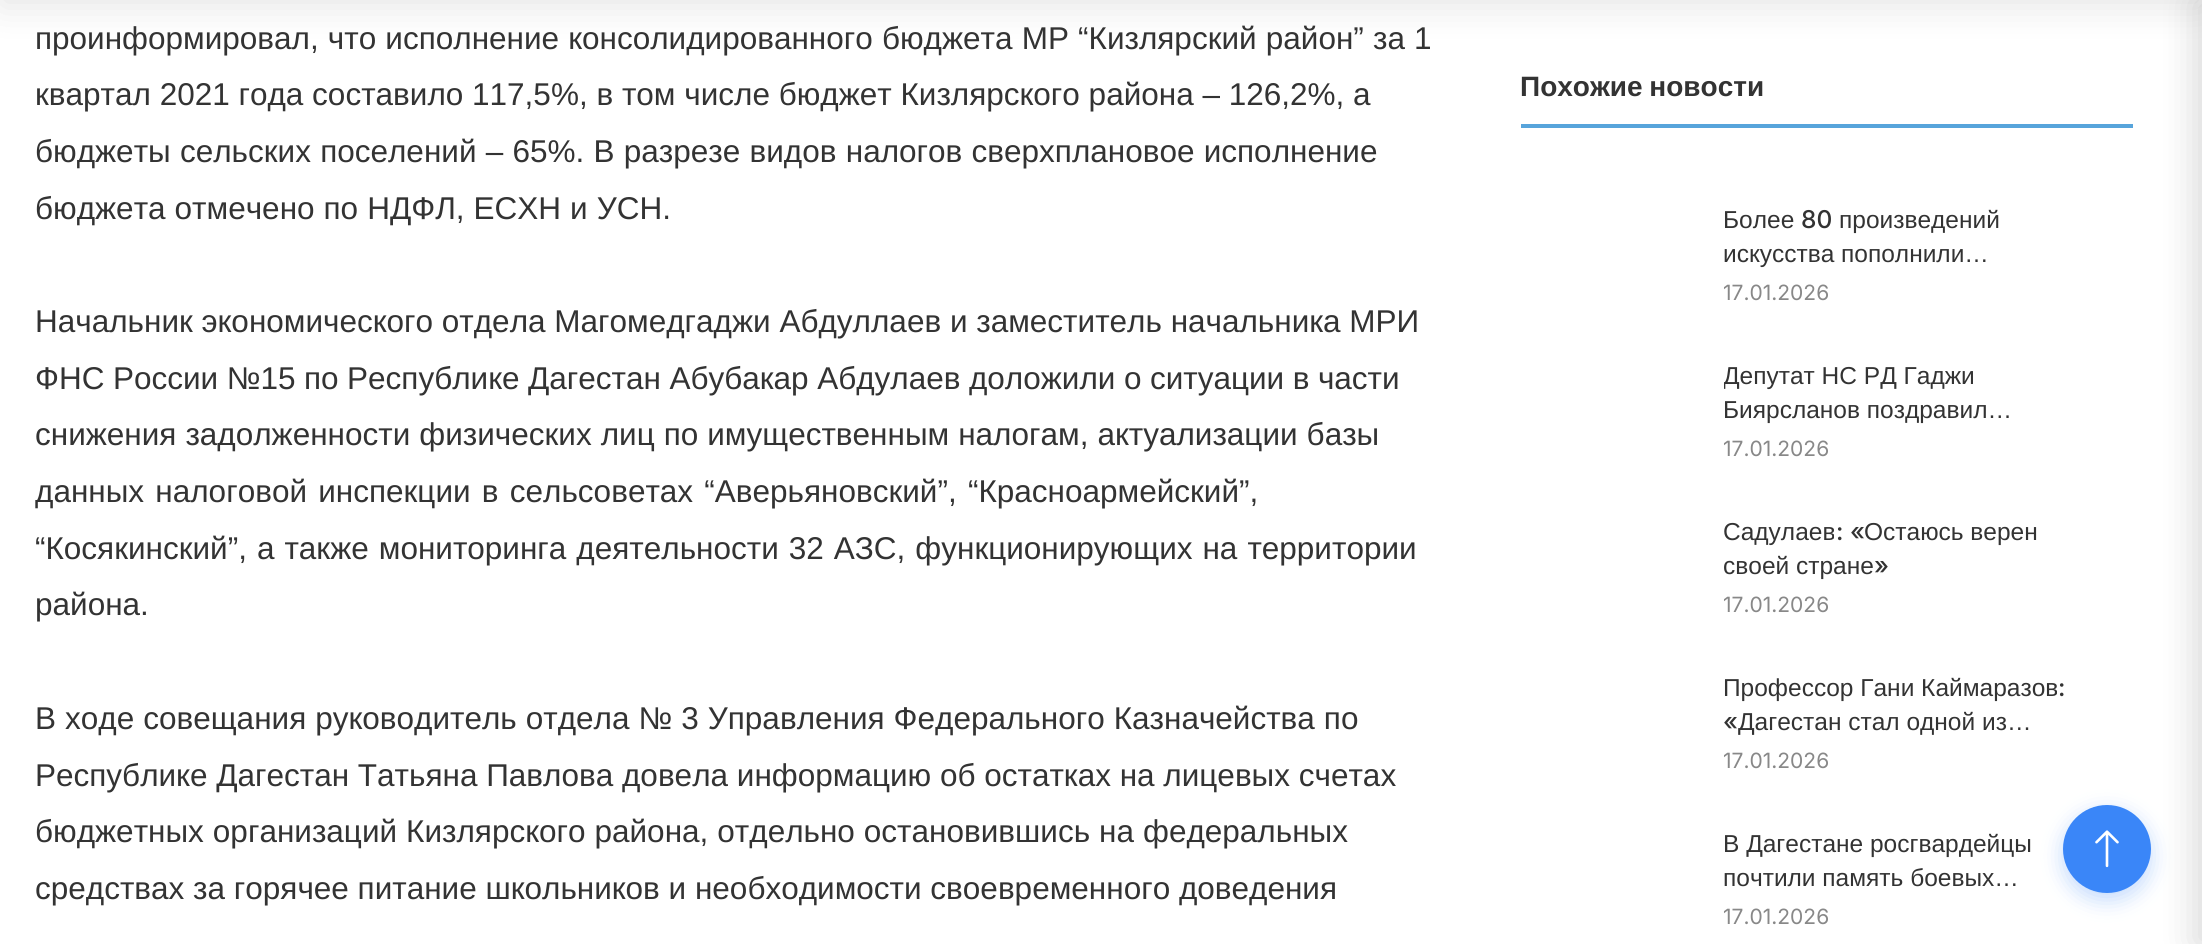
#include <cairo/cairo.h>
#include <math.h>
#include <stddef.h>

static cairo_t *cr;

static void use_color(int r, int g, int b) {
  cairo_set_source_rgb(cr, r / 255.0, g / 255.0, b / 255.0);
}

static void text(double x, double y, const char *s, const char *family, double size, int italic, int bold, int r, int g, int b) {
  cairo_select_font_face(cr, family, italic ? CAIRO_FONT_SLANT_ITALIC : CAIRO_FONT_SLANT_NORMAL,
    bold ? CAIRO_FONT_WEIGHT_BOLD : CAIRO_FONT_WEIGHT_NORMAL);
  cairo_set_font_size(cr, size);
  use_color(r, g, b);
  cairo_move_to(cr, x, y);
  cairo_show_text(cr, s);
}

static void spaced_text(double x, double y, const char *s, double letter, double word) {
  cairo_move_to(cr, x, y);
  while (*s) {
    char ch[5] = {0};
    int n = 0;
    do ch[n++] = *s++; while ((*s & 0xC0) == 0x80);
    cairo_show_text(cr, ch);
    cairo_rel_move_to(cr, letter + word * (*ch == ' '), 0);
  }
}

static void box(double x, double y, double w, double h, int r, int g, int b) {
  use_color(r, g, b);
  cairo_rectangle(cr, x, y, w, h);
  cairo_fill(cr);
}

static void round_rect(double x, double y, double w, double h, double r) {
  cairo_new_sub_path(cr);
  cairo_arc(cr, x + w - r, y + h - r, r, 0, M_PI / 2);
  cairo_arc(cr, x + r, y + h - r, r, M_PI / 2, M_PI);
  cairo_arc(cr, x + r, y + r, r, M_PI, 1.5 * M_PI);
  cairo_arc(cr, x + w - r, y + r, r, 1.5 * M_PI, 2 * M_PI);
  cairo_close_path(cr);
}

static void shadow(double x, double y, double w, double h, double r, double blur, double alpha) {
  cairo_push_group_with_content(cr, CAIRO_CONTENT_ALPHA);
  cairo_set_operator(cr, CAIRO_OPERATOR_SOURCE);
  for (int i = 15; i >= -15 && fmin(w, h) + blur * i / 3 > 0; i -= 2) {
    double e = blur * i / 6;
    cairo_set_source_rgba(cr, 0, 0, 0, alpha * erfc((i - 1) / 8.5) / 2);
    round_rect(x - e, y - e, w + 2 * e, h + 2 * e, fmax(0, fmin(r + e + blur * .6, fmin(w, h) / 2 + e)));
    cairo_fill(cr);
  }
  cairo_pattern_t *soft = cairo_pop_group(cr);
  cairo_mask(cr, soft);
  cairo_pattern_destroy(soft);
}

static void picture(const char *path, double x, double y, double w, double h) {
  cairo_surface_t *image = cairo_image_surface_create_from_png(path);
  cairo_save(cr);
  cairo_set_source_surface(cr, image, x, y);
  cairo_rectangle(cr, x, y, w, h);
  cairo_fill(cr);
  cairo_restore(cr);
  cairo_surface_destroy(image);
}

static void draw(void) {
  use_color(255, 255, 255);
  cairo_paint(cr);
  use_color(0, 0, 0);
  shadow(0, -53, 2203, 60, 0, 17.5, 0.1);
  box(1521, 124, 612, 4, 87, 164, 219);
  use_color(58, 134, 248);
  shadow(2063, 812, 88, 88, 44, 10.5, 0.3);
  use_color(58, 134, 248);
  cairo_arc(cr, 2107, 849, 44, 0, 2 * M_PI);
  cairo_fill(cr);
  use_color(0, 0, 0);
  shadow(2195, 0, 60, 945, 0, 17.5, 0.15);
  picture("img_01.png", 2095, 830, 24, 38);
  cairo_select_font_face(cr, "Liberation Sans", CAIRO_FONT_SLANT_NORMAL, CAIRO_FONT_WEIGHT_NORMAL);
  cairo_set_font_size(cr, 31.5);
  use_color(51, 51, 51);
  spaced_text(35, 49, "проинформировал, что исполнение консолидированного бюджета МР “Кизлярский район” за 1", 0, 0.4);
  text(35, 105, "квартал 2021 года составило 117,5%, в том числе бюджет Кизлярского района – 126,2%, а", "Liberation Sans", 31.5, 0, 0, 51, 51, 51);
  spaced_text(35, 162, "бюджеты сельских поселений – 65%. В разрезе видов налогов сверхплановое исполнение", 0, 0.5);
  spaced_text(35, 219, "бюджета отмечено по НДФЛ, ЕСХН и УСН.", 0, 0.25);
  text(35, 332, "Начальник экономического отдела Магомедгаджи Абдуллаев и заместитель начальника МРИ", "Liberation Sans", 31.5, 0, 0, 51, 51, 51);
  spaced_text(35, 389, "ФНС России №15 по Республике Дагестан Абубакар Абдулаев доложили о ситуации в части", 0, -0.25);
  spaced_text(35, 445, "снижения задолженности физических лиц по имущественным налогам, актуализации базы", 0, 0.25);
  spaced_text(35, 502, "данных налоговой инспекции в сельсоветах “Аверьяновский”, “Красноармейский”,", 0, 2.5);
  spaced_text(35, 559, "“Косякинский”, а также мониторинга деятельности 32 АЗС, функционирующих на территории", 0, 1.25);
  text(35, 615, "района.", "Liberation Sans", 31.5, 0, 0, 51, 51, 51);
  spaced_text(35, 729, "В ходе совещания руководитель отдела № 3 Управления Федерального Казначейства по", 0, 0.25);
  text(35, 786, "Республике Дагестан Татьяна Павлова довела информацию об остатках на лицевых счетах", "Liberation Sans", 31.5, 0, 0, 51, 51, 51);
  spaced_text(35, 842, "бюджетных организаций Кизлярского района, отдельно остановившись на федеральных", 0, 0.25);
  text(35, 899, "средствах за горячее питание школьников и необходимости своевременного доведения", "Liberation Sans", 31.5, 0, 0, 51, 51, 51);
  cairo_select_font_face(cr, "Liberation Sans", CAIRO_FONT_SLANT_NORMAL, CAIRO_FONT_WEIGHT_BOLD);
  cairo_set_font_size(cr, 28);
  spaced_text(1520, 96, "Похожие новости", 0, -1);
  text(1723, 228, "Более", "Liberation Sans", 24.5, 0, 0, 51, 51, 51);
  text(1801, 228, "80", "Inter Medium", 24.5, 0, 0, 51, 51, 51);
  text(1839, 228, "произведений", "Liberation Sans", 24.5, 0, 0, 51, 51, 51);
  text(1723, 262, "искусства пополнили…", "Liberation Sans", 24.5, 0, 0, 51, 51, 51);
  text(1723, 300, "17.01.2026", "Inter", 21, 0, 0, 136, 136, 136);
  cairo_save(cr);
  cairo_rectangle(cr, 1724, 357, 367, 70);
  cairo_clip(cr);
  text(1723, 384, "Депутат НС РД Гаджи", "Liberation Sans", 24.5, 0, 0, 51, 51, 51);
  cairo_restore(cr);
  text(1723, 418, "Биярсланов поздравил…", "Liberation Sans", 24.5, 0, 0, 51, 51, 51);
  text(1723, 456, "17.01.2026", "Inter", 21, 0, 0, 136, 136, 136);
  text(1723, 540, "Садулаев", "Liberation Sans", 24.5, 0, 0, 51, 51, 51);
  text(1836, 540, ": «", "Inter Medium", 24.5, 0, 0, 51, 51, 51);
  text(1864, 540, "Остаюсь верен", "Liberation Sans", 24.5, 0, 0, 51, 51, 51);
  text(1723, 574, "своей стране", "Liberation Sans", 24.5, 0, 0, 51, 51, 51);
  text(1874, 574, "»", "Inter Medium", 24.5, 0, 0, 51, 51, 51);
  text(1723, 612, "17.01.2026", "Inter", 21, 0, 0, 136, 136, 136);
  text(1723, 696, "Профессор Гани Каймаразов", "Liberation Sans", 24.5, 0, 0, 51, 51, 51);
  text(2058, 696, ":", "Inter Medium", 24.5, 0, 0, 51, 51, 51);
  text(1723, 730, "«", "Inter Medium", 24.5, 0, 0, 51, 51, 51);
  text(1738, 730, "Дагестан стал одной из…", "Liberation Sans", 24.5, 0, 0, 51, 51, 51);
  text(1723, 768, "17.01.2026", "Inter", 21, 0, 0, 136, 136, 136);
  text(1723, 852, "В Дагестане росгвардейцы", "Liberation Sans", 24.5, 0, 0, 51, 51, 51);
  text(1723, 886, "почтили память боевых…", "Liberation Sans", 24.5, 0, 0, 51, 51, 51);
  text(1723, 924, "17.01.2026", "Inter", 21, 0, 0, 136, 136, 136);
}

int main(void) {
  cairo_surface_t *surface = cairo_image_surface_create(CAIRO_FORMAT_RGB24, 2202, 944);
  cr = cairo_create(surface);
  cairo_font_options_t *options = cairo_font_options_create();
  cairo_font_options_set_hint_metrics(options, CAIRO_HINT_METRICS_OFF);
  cairo_font_options_set_hint_style(options, CAIRO_HINT_STYLE_NONE);
  cairo_set_font_options(cr, options);
  cairo_set_miter_limit(cr, 4);
  draw();
  cairo_surface_write_to_png(surface, "out.png");
  cairo_font_options_destroy(options);
  cairo_destroy(cr);
  cairo_surface_destroy(surface);
  return 0;
}
